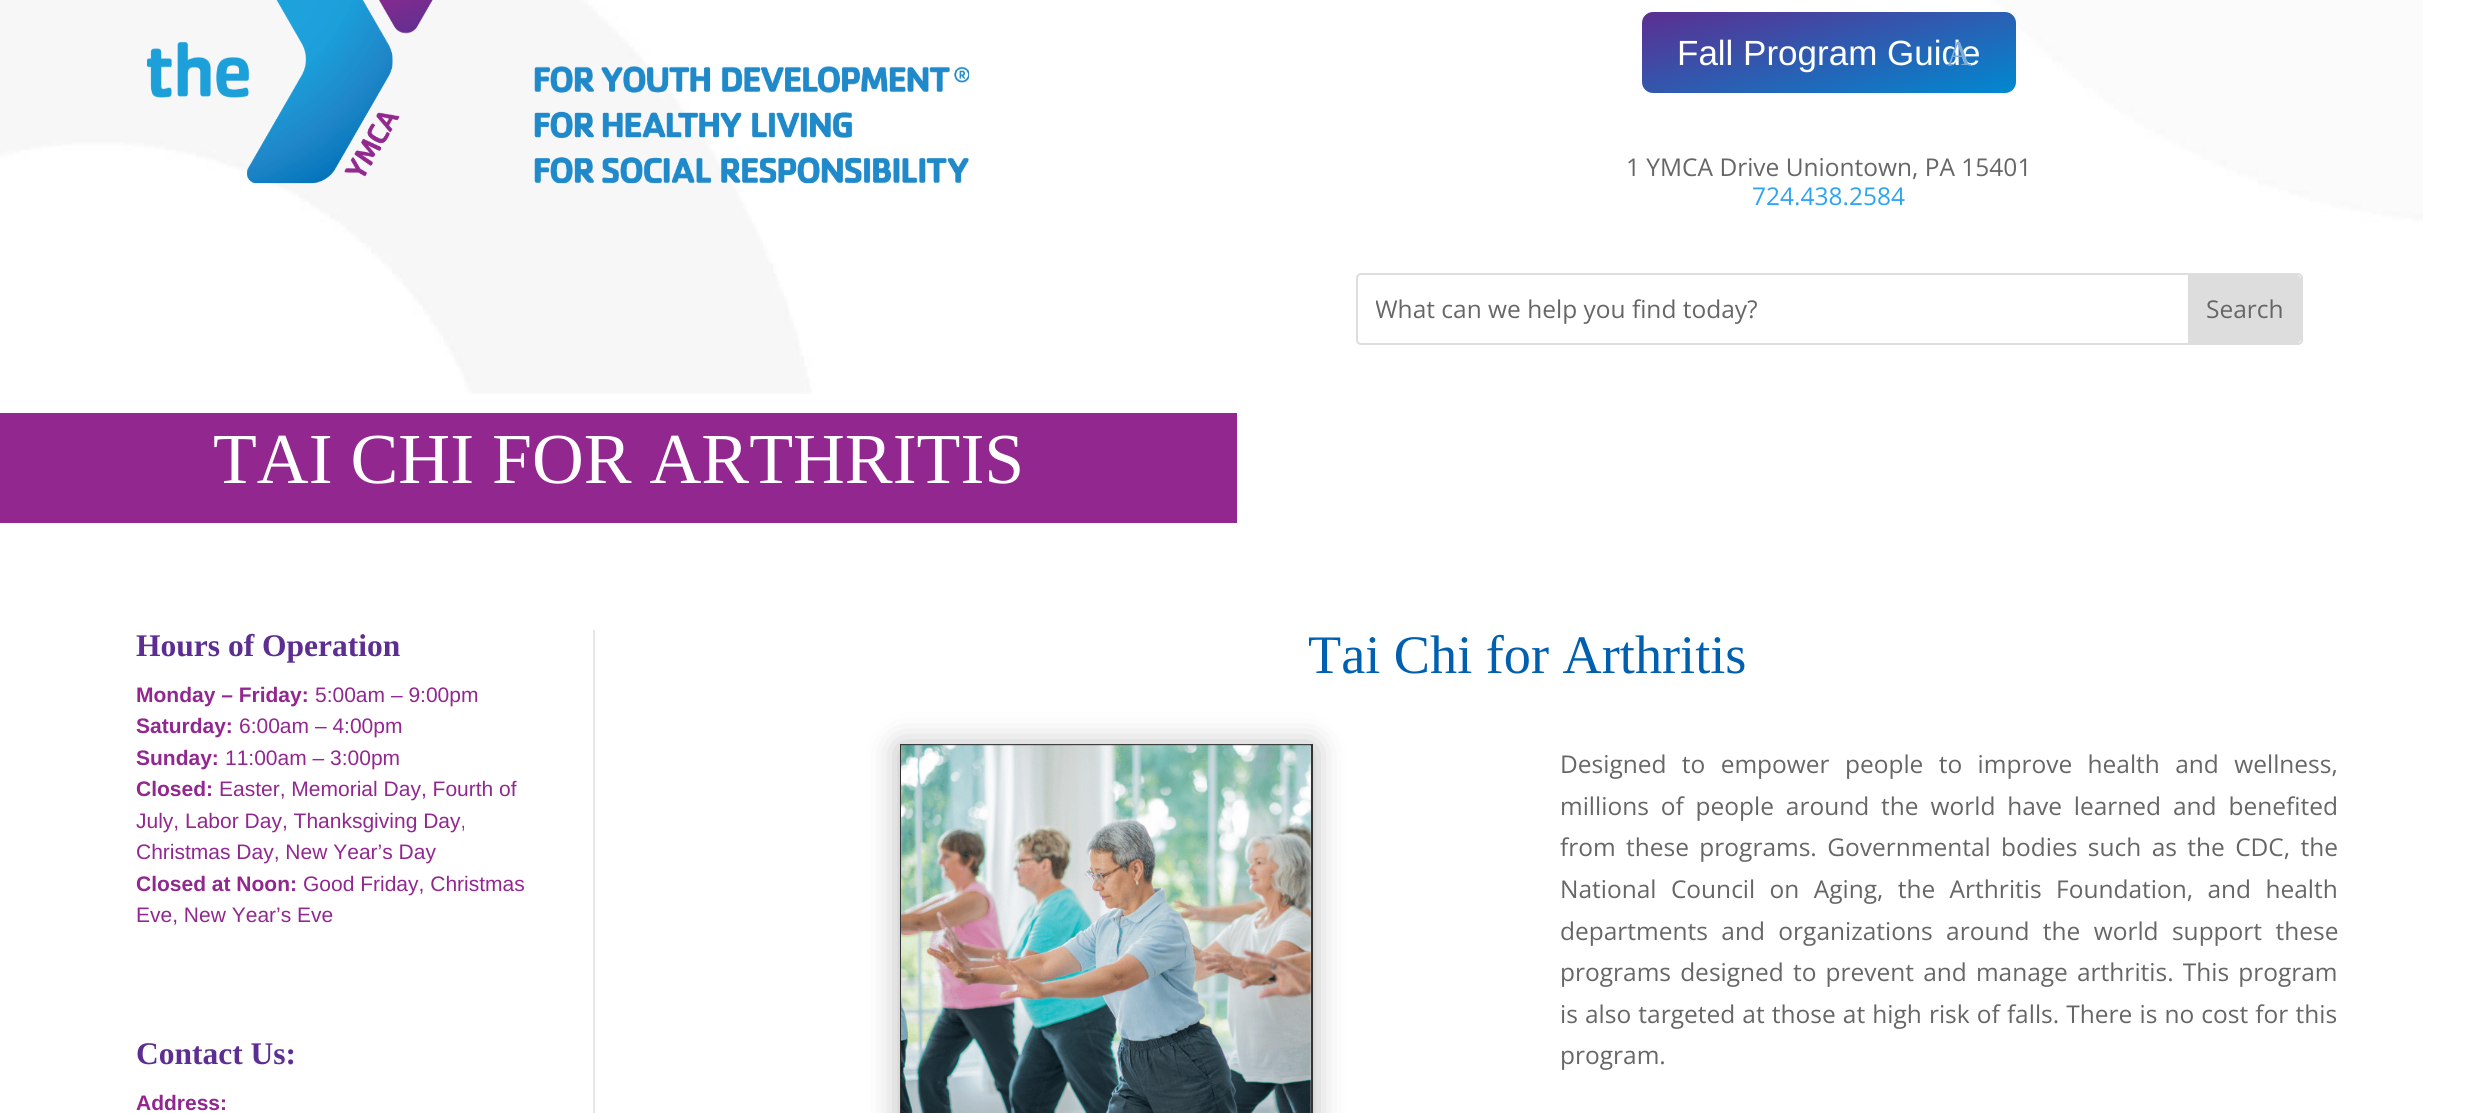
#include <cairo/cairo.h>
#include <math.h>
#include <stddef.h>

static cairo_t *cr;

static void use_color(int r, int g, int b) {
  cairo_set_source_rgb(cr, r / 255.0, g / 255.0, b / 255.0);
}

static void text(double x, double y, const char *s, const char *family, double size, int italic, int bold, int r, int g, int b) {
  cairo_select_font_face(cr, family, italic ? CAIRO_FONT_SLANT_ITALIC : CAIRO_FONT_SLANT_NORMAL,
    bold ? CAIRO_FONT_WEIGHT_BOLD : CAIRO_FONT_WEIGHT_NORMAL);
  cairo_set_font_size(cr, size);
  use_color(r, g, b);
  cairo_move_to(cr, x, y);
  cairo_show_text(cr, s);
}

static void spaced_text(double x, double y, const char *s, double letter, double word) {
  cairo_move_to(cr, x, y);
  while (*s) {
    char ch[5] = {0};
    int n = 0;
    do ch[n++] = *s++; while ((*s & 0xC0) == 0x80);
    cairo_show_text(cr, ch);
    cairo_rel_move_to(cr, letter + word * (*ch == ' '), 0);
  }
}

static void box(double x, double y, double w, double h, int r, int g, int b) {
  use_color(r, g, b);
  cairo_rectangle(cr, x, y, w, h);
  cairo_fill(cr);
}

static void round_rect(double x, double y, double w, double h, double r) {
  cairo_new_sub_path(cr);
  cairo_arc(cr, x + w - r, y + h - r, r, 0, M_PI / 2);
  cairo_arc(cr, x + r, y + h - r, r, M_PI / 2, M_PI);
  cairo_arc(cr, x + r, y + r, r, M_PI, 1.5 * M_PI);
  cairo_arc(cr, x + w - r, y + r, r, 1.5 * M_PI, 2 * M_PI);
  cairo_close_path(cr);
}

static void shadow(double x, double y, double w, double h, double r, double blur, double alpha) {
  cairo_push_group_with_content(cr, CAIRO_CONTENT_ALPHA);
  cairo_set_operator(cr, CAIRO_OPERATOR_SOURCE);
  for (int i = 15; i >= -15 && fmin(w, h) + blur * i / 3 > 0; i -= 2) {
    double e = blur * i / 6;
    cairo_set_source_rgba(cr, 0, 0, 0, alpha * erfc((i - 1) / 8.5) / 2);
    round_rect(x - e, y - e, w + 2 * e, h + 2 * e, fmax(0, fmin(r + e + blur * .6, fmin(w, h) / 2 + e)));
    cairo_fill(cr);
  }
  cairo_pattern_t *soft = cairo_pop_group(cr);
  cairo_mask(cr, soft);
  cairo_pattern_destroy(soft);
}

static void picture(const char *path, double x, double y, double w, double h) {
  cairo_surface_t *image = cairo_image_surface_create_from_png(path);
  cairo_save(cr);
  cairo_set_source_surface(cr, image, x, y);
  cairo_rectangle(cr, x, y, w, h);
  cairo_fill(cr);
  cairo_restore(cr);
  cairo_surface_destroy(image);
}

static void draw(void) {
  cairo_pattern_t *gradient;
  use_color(255, 255, 255);
  cairo_paint(cr);
  picture("img_01.png", 0, 0, 2423, 394);
  picture("img_02.png", 147, 0, 822, 184);
  gradient = cairo_pattern_create_linear(1806, -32, 1851, 137);
  cairo_pattern_add_color_stop_rgba(gradient, 0, 0.361, 0.18, 0.569, 1);
  cairo_pattern_add_color_stop_rgba(gradient, 1, 0, 0.537, 0.816, 1);
  cairo_set_source(cr, gradient);
  cairo_pattern_destroy(gradient);
  round_rect(1642, 12, 374, 81, 11);
  cairo_fill(cr);
  round_rect(1357, 274, 945, 70, 4);
  use_color(221, 221, 221);
  cairo_stroke(cr);
  cairo_new_path(cr);
  cairo_move_to(cr, 2188, 275);
  cairo_line_to(cr, 2297, 275);
  cairo_curve_to(cr, 2299, 275, 2301, 277, 2301, 279);
  cairo_line_to(cr, 2301, 339);
  cairo_curve_to(cr, 2301, 341, 2299, 343, 2297, 343);
  cairo_line_to(cr, 2188, 343);
  cairo_close_path(cr);
  cairo_fill(cr);
  box(0, 413, 1237, 110, 146, 39, 143);
  box(593, 630, 2, 483, 230, 230, 230);
  use_color(0, 0, 0);
  shadow(900, 747, 413, 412, 0, 16, 0.3);
  cairo_rectangle(cr, 901, 745, 411, 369);
  use_color(51, 51, 51);
  cairo_stroke(cr);
  picture("img_03.png", 901, 744, 410, 369);
  text(1677, 65, "Fall Program Guide", "Liberation Sans", 35, 0, 0, 255, 255, 255);
  text(1946, 65, "A", "Liberation Serif", 35, 0, 0, 125, 172, 217);
  text(1626, 176, "1 YMCA Drive Uniontown, PA 15401", "Open Sans", 24.5, 0, 0, 102, 102, 102);
  text(1752, 205, "724.438.2584", "Open Sans", 24.5, 0, 0, 46, 163, 242);
  cairo_save(cr);
  cairo_rectangle(cr, 1376, 292, 672, 34);
  cairo_clip(cr);
  text(1375, 318, "What can we help you find today?", "Open Sans", 24.5, 0, 0, 102, 102, 102);
  cairo_restore(cr);
  text(2206, 318, "Search", "Open Sans", 24.5, 0, 0, 102, 102, 102);
  text(213, 483, "TAI CHI FOR ARTHRITIS", "Liberation Serif", 71.75, 0, 0, 255, 255, 255);
  text(136, 656, "Hours of Operation", "Liberation Serif", 31.5, 0, 1, 92, 46, 145);
  text(136, 702, "Monday – Friday:", "Liberation Sans", 21, 0, 1, 146, 39, 143);
  text(315, 702, "5:00am – 9:00pm", "Liberation Sans", 21, 0, 0, 146, 39, 143);
  text(136, 733, "Saturday:", "Liberation Sans", 21, 0, 1, 146, 39, 143);
  text(239, 733, "6:00am – 4:00pm", "Liberation Sans", 21, 0, 0, 146, 39, 143);
  text(136, 765, "Sunday:", "Liberation Sans", 21, 0, 1, 146, 39, 143);
  text(225, 765, "11:00am – 3:00pm", "Liberation Sans", 21, 0, 0, 146, 39, 143);
  text(136, 796, "Closed:", "Liberation Sans", 21, 0, 1, 146, 39, 143);
  text(219, 796, "Easter, Memorial Day, Fourth of", "Liberation Sans", 21, 0, 0, 146, 39, 143);
  text(136, 828, "July, Labor Day, Thanksgiving Day,", "Liberation Sans", 21, 0, 0, 146, 39, 143);
  text(136, 859, "Christmas Day, New Year’s Day", "Liberation Sans", 21, 0, 0, 146, 39, 143);
  text(136, 891, "Closed at Noon:", "Liberation Sans", 21, 0, 1, 146, 39, 143);
  text(303, 891, "Good Friday, Christmas", "Liberation Sans", 21, 0, 0, 146, 39, 143);
  text(136, 922, "Eve, New Year’s Eve", "Liberation Sans", 21, 0, 0, 146, 39, 143);
  text(136, 1064, "Contact Us:", "Liberation Serif", 31.5, 0, 1, 92, 46, 145);
  text(136, 1110, "Address:", "Liberation Sans", 21, 0, 1, 146, 39, 143);
  text(1308, 673, "Tai Chi for Arthritis", "Liberation Serif", 54.25, 0, 0, 0, 96, 175);
  cairo_select_font_face(cr, "Open Sans", CAIRO_FONT_SLANT_NORMAL, CAIRO_FONT_WEIGHT_NORMAL);
  cairo_set_font_size(cr, 24.5);
  use_color(102, 102, 102);
  spaced_text(1560, 773, "Designed to empower people to improve health and wellness,", 0, 9);
  spaced_text(1560, 815, "millions of people around the world have learned and benefited", 0, 5.5);
  spaced_text(1560, 856, "from these programs. Governmental bodies such as the CDC, the", 0, 4);
  spaced_text(1560, 898, "National Council on Aging, the Arthritis Foundation, and health", 0, 8);
  spaced_text(1560, 940, "departments and organizations around the world support these", 0, 7);
  spaced_text(1560, 981, "programs designed to prevent and manage arthritis. This program", 0, 2.75);
  spaced_text(1560, 1023, "is also targeted at those at high risk of falls. There is no cost for this", 0, 0.75);
  text(1560, 1064, "program.", "Open Sans", 24.5, 0, 0, 102, 102, 102);
}

int main(void) {
  cairo_surface_t *surface = cairo_image_surface_create(CAIRO_FORMAT_RGB24, 2474, 1113);
  cr = cairo_create(surface);
  cairo_font_options_t *options = cairo_font_options_create();
  cairo_font_options_set_hint_metrics(options, CAIRO_HINT_METRICS_OFF);
  cairo_font_options_set_hint_style(options, CAIRO_HINT_STYLE_NONE);
  cairo_set_font_options(cr, options);
  cairo_set_miter_limit(cr, 4);
  draw();
  cairo_surface_write_to_png(surface, "out.png");
  cairo_font_options_destroy(options);
  cairo_destroy(cr);
  cairo_surface_destroy(surface);
  return 0;
}
